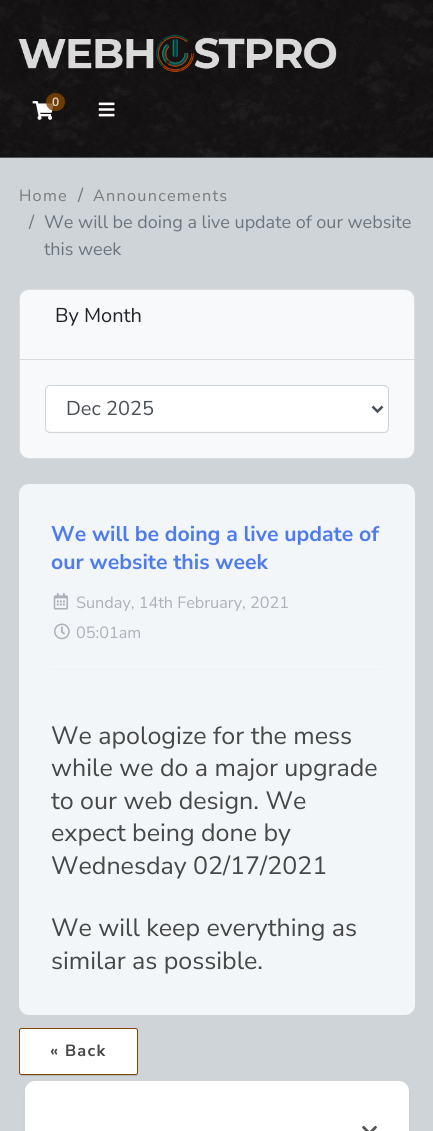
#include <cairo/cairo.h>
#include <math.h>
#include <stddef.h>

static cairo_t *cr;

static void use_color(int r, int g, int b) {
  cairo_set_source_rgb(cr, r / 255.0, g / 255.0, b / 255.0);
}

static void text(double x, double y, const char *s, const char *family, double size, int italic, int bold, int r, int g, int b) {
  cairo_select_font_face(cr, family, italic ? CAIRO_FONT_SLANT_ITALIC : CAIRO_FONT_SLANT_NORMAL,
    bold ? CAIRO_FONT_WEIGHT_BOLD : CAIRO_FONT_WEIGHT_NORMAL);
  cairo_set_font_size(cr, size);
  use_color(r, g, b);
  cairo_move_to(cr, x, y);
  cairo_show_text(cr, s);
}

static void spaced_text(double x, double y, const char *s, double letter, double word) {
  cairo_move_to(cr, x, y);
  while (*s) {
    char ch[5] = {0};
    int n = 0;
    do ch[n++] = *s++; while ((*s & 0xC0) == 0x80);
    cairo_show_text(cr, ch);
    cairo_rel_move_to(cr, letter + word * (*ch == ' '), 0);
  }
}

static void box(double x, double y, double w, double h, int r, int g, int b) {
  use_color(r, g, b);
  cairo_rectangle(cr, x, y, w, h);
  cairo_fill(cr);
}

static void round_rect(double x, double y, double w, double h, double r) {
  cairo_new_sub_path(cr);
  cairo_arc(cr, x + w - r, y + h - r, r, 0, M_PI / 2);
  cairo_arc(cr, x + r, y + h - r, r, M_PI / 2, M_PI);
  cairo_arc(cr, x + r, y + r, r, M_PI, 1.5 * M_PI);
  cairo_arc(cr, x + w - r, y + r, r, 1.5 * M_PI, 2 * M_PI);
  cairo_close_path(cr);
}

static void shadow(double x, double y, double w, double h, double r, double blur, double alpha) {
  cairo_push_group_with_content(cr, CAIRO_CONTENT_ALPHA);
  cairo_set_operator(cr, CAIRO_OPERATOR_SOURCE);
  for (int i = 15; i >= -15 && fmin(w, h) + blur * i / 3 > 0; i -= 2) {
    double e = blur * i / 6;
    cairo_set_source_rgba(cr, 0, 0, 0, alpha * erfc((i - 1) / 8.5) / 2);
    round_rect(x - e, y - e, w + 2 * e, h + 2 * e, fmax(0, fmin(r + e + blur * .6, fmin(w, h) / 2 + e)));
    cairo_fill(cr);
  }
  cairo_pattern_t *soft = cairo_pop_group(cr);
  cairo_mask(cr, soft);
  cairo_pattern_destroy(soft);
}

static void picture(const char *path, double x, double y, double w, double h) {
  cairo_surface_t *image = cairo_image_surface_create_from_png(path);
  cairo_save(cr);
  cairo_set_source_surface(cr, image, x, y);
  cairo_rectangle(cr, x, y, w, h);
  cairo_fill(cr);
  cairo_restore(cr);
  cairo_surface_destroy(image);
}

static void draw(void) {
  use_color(143, 156, 166);
  cairo_paint(cr);
  picture("img_01.png", 0, 0, 433, 158);
  picture("img_02.png", 18, 34, 319, 39);
  picture("img_03.png", 32, 101, 22, 19);
  cairo_set_source_rgba(cr, 0.522, 0.271, 0, 0.8);
  round_rect(46, 93, 19, 18, 9);
  cairo_fill(cr);
  picture("img_04.png", 98, 102, 17, 15);
  box(0, 158, 433, 973, 206, 212, 215);
  use_color(248, 249, 250);
  round_rect(19, 289, 396, 170, 10);
  cairo_fill(cr);
  round_rect(19.5, 289.5, 395, 169, 9.5);
  cairo_set_source_rgba(cr, 0, 0, 0, 0.12);
  cairo_set_line_width(cr, 1);
  cairo_stroke(cr);
  box(20, 359, 394, 1, 217, 218, 219);
  use_color(255, 255, 255);
  round_rect(46, 386, 342, 45, 4);
  cairo_fill(cr);
  round_rect(45.5, 385.5, 343, 47, 4.5);
  use_color(206, 212, 218);
  cairo_stroke(cr);
  cairo_new_path(cr);
  cairo_move_to(cr, 372.5, 406.5);
  cairo_line_to(cr, 377.5, 411.5);
  cairo_line_to(cr, 382.5, 406.5);
  use_color(73, 80, 87);
  cairo_set_line_width(cr, 2.5);
  cairo_stroke(cr);
  use_color(243, 246, 249);
  round_rect(19, 484, 396, 531, 10);
  cairo_fill(cr);
  picture("img_05.png", 53, 593, 15, 17);
  picture("img_06.png", 54, 623, 16, 17);
  box(51, 669, 332, 1, 241, 241, 241);
  use_color(179, 184, 187);
  cairo_new_path(cr);
  cairo_move_to(cr, 19, 1074);
  cairo_curve_to(cr, 19, 1075, 20, 1076, 22, 1076);
  cairo_line_to(cr, 136, 1076);
  cairo_curve_to(cr, 137, 1076, 138, 1075, 138, 1074);
  cairo_line_to(cr, 138, 1032);
  cairo_line_to(cr, 138, 1030);
  cairo_line_to(cr, 138, 1072);
  cairo_curve_to(cr, 138, 1074, 136, 1075, 135, 1075);
  cairo_line_to(cr, 21, 1075);
  cairo_curve_to(cr, 20, 1075, 19, 1074, 19, 1074);
  cairo_close_path(cr);
  cairo_fill(cr);
  use_color(255, 255, 255);
  round_rect(19.5, 1028.5, 118, 46, 2);
  cairo_fill_preserve(cr);
  use_color(133, 69, 0);
  cairo_set_line_width(cr, 1);
  cairo_stroke(cr);
  use_color(42, 46, 54);
  shadow(25, 1083, 384, 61, 10, 1, 0.11);
  use_color(255, 255, 255);
  round_rect(25, 1081, 384, 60, 10);
  cairo_fill(cr);
  picture("img_07.png", 362, 1125, 15, 6);
  text(52, 106, "0", "Nunito Sans", 12, 0, 1, 217, 209, 200);
  cairo_select_font_face(cr, "Nunito Sans", CAIRO_FONT_SLANT_NORMAL, CAIRO_FONT_WEIGHT_NORMAL);
  cairo_set_font_size(cr, 16.25);
  use_color(122, 122, 122);
  spaced_text(19, 201, "Home", 1.25, 0);
  text(78, 201, "/", "Nunito Sans", 18, 0, 0, 108, 117, 125);
  cairo_set_font_size(cr, 16.25);
  use_color(122, 122, 122);
  spaced_text(93, 201, "Announcements", 1.25, 0);
  text(29, 228, "/", "Nunito Sans", 18, 0, 0, 108, 117, 125);
  text(44, 228, "We will be doing a live update of our website", "Nunito Sans", 18, 0, 0, 108, 117, 125);
  text(44, 255, "this week", "Nunito Sans", 18, 0, 0, 108, 117, 125);
  text(55, 322, "By Month", "Nunito Sans", 20, 0, 0, 33, 37, 41);
  text(66, 415, "Dec 2025", "Nunito Sans", 20, 0, 0, 73, 80, 87);
  text(51, 541, "We will be doing a live update of", "Nunito Sans", 21.25, 0, 1, 79, 124, 236);
  text(51, 569, "our website this week", "Nunito Sans", 21.25, 0, 1, 79, 124, 236);
  text(76, 608, "Sunday, 14th February, 2021", "Nunito Sans", 16.25, 0, 0, 172, 176, 184);
  text(76, 638, "05:01am", "Nunito Sans", 16.25, 0, 0, 172, 176, 184);
  text(51, 744, "We apologize for the mess", "Nunito Sans", 25, 0, 0, 70, 71, 71);
  text(51, 776, "while we do a major upgrade", "Nunito Sans", 25, 0, 0, 70, 71, 71);
  text(51, 809, "to our web design. We", "Nunito Sans", 25, 0, 0, 70, 71, 71);
  text(51, 841, "expect being done by", "Nunito Sans", 25, 0, 0, 70, 71, 71);
  text(51, 874, "Wednesday 02/17/2021", "Nunito Sans", 25, 0, 0, 70, 71, 71);
  text(51, 936, "We will keep everything as", "Nunito Sans", 25, 0, 0, 70, 71, 71);
  text(51, 969, "similar as possible.", "Nunito Sans", 25, 0, 0, 70, 71, 71);
  cairo_select_font_face(cr, "Nunito Sans", CAIRO_FONT_SLANT_NORMAL, CAIRO_FONT_WEIGHT_BOLD);
  cairo_set_font_size(cr, 16.25);
  spaced_text(50, 1056, "« Back", 1.25, 0);
}

int main(void) {
  cairo_surface_t *surface = cairo_image_surface_create(CAIRO_FORMAT_RGB24, 433, 1131);
  cr = cairo_create(surface);
  cairo_font_options_t *options = cairo_font_options_create();
  cairo_font_options_set_hint_metrics(options, CAIRO_HINT_METRICS_OFF);
  cairo_font_options_set_hint_style(options, CAIRO_HINT_STYLE_NONE);
  cairo_set_font_options(cr, options);
  cairo_set_miter_limit(cr, 4);
  draw();
  cairo_surface_write_to_png(surface, "out.png");
  cairo_font_options_destroy(options);
  cairo_destroy(cr);
  cairo_surface_destroy(surface);
  return 0;
}
